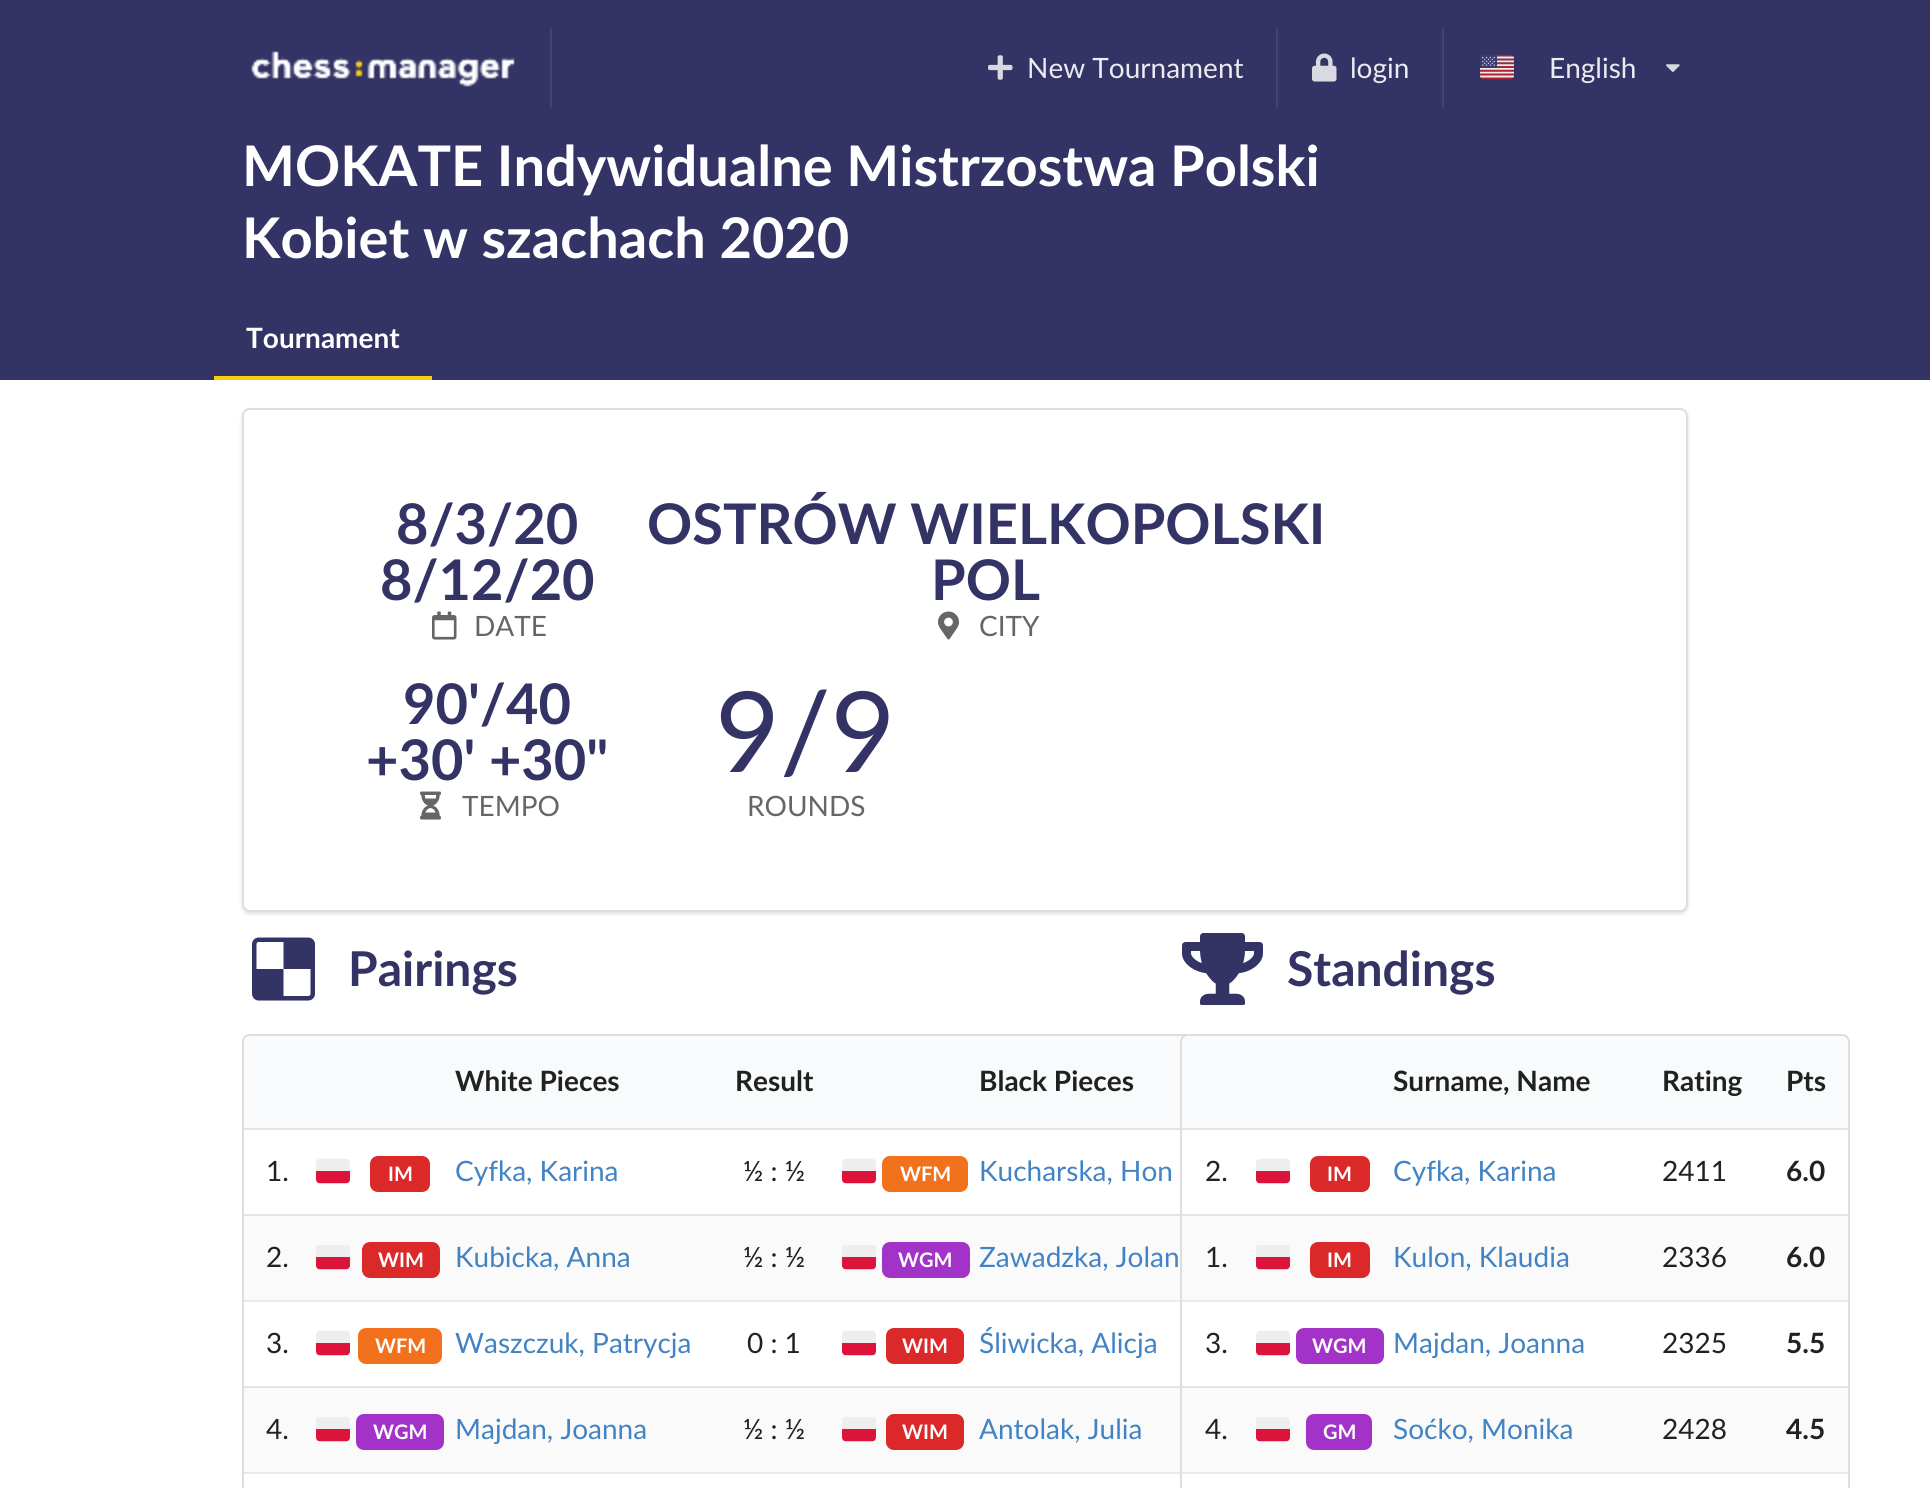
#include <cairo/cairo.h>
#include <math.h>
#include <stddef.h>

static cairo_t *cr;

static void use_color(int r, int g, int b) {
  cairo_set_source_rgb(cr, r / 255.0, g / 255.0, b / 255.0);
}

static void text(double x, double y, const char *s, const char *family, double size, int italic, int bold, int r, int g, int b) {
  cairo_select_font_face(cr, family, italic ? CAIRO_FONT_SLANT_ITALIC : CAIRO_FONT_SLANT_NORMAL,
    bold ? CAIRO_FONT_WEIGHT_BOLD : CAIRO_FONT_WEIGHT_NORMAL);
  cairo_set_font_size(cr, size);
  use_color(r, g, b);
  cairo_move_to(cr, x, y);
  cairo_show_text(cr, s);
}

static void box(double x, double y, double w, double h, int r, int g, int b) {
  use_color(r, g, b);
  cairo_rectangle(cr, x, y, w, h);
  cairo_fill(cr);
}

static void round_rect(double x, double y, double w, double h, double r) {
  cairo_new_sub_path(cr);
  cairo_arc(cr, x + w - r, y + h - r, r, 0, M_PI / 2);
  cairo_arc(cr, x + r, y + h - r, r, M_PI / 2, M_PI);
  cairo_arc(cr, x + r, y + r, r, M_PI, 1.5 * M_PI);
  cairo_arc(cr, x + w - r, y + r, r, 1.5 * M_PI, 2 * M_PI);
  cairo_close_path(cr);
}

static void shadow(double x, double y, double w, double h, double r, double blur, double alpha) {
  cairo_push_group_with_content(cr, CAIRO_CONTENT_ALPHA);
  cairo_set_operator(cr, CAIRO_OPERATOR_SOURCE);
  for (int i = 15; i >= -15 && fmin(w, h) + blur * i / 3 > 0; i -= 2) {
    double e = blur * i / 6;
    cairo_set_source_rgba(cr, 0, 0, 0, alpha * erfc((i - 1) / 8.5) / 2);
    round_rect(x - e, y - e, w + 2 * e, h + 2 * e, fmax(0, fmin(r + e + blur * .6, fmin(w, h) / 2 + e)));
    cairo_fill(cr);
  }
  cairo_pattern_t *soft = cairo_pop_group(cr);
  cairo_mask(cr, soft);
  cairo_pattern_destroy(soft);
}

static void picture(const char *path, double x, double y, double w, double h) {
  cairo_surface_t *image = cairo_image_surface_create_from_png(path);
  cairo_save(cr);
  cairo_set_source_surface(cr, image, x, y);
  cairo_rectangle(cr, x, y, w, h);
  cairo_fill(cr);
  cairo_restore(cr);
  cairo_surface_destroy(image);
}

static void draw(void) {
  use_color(255, 255, 255);
  cairo_paint(cr);
  box(0, 0, 1930, 380, 51, 51, 101);
  picture("img_01.png", 251, 51, 264, 36);
  box(550, 28, 2, 80, 67, 67, 113);
  picture("img_02.png", 988, 55, 25, 25);
  box(1276, 28, 2, 80, 67, 67, 113);
  picture("img_03.png", 1312, 53, 25, 29);
  box(1442, 28, 2, 80, 67, 67, 113);
  picture("img_04.png", 1480, 54, 34, 26);
  picture("img_05.png", 1666, 64, 14, 8);
  box(214, 376, 218, 4, 252, 206, 17);
  use_color(34, 36, 38);
  shadow(242, 410, 1446, 504, 8, 2, 0.15);
  use_color(255, 255, 255);
  round_rect(242, 408, 1446, 504, 8);
  cairo_fill(cr);
  round_rect(243, 409, 1444, 502, 7);
  cairo_set_source_rgba(cr, 0.133, 0.141, 0.149, 0.15);
  cairo_stroke(cr);
  picture("img_06.png", 432, 611, 25, 29);
  picture("img_07.png", 938, 611, 21, 29);
  picture("img_08.png", 420, 791, 21, 29);
  picture("img_09.png", 252, 937, 63, 64);
  round_rect(243, 1035, 1062, 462, 7);
  use_color(222, 222, 222);
  cairo_stroke(cr);
  use_color(249, 250, 251);
  cairo_new_path(cr);
  cairo_move_to(cr, 252, 1036);
  cairo_line_to(cr, 310, 1036);
  cairo_line_to(cr, 310, 1130);
  cairo_line_to(cr, 244, 1130);
  cairo_line_to(cr, 244, 1044);
  cairo_curve_to(cr, 244, 1039.5, 247.5, 1036, 252, 1036);
  cairo_close_path(cr);
  cairo_fill(cr);
  box(244, 1128, 936, 2, 227, 229, 230);
  box(310, 1036, 873, 92, 249, 250, 251);
  picture("img_10.png", 316, 1158, 34, 26);
  use_color(219, 40, 40);
  round_rect(370, 1156, 60, 36, 8);
  cairo_fill(cr);
  picture("img_10.png", 842, 1158, 34, 26);
  use_color(242, 113, 28);
  round_rect(882, 1156, 86, 36, 8);
  cairo_fill(cr);
  box(244, 1216, 936, 84, 250, 250, 251);
  box(244, 1214, 936, 2, 228, 229, 230);
  picture("img_11.png", 316, 1245, 34, 25);
  use_color(219, 40, 40);
  round_rect(362, 1242, 78, 36, 8);
  cairo_fill(cr);
  picture("img_11.png", 842, 1245, 34, 25);
  use_color(163, 51, 200);
  round_rect(882, 1242, 88, 36, 8);
  cairo_fill(cr);
  box(244, 1300, 936, 2, 233, 233, 233);
  picture("img_10.png", 316, 1330, 34, 26);
  use_color(242, 113, 28);
  round_rect(358, 1328, 84, 36, 8);
  cairo_fill(cr);
  picture("img_10.png", 842, 1330, 34, 26);
  use_color(219, 40, 40);
  round_rect(886, 1328, 78, 36, 8);
  cairo_fill(cr);
  box(244, 1388, 936, 84, 250, 250, 251);
  box(244, 1386, 936, 2, 228, 229, 230);
  picture("img_11.png", 316, 1417, 34, 25);
  use_color(163, 51, 200);
  round_rect(356, 1414, 88, 36, 8);
  cairo_fill(cr);
  picture("img_11.png", 842, 1417, 34, 25);
  use_color(219, 40, 40);
  round_rect(886, 1414, 78, 36, 8);
  cairo_fill(cr);
  box(244, 1472, 936, 2, 233, 233, 233);
  picture("img_12.png", 1182, 933, 81, 72);
  use_color(255, 255, 255);
  round_rect(1180, 1034, 670, 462, 8);
  cairo_fill(cr);
  round_rect(1181, 1035, 668, 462, 7);
  cairo_set_source_rgba(cr, 0.133, 0.141, 0.149, 0.15);
  cairo_stroke(cr);
  use_color(249, 250, 251);
  cairo_new_path(cr);
  cairo_move_to(cr, 1190, 1036);
  cairo_line_to(cr, 1250, 1036);
  cairo_line_to(cr, 1250, 1130);
  cairo_line_to(cr, 1182, 1130);
  cairo_line_to(cr, 1182, 1044);
  cairo_curve_to(cr, 1182, 1039.5, 1185.5, 1036, 1190, 1036);
  cairo_close_path(cr);
  cairo_fill(cr);
  box(1182, 1128, 582, 2, 227, 229, 230);
  box(1250, 1036, 514, 92, 249, 250, 251);
  cairo_new_path(cr);
  cairo_move_to(cr, 1764, 1036);
  cairo_line_to(cr, 1840, 1036);
  cairo_curve_to(cr, 1844.5, 1036, 1848, 1039.5, 1848, 1044);
  cairo_line_to(cr, 1848, 1130);
  cairo_line_to(cr, 1764, 1130);
  cairo_close_path(cr);
  cairo_fill(cr);
  box(1764, 1128, 84, 2, 227, 229, 230);
  picture("img_10.png", 1256, 1158, 34, 26);
  use_color(219, 40, 40);
  round_rect(1310, 1156, 60, 36, 8);
  cairo_fill(cr);
  box(1182, 1216, 666, 84, 250, 250, 251);
  box(1182, 1214, 666, 2, 228, 229, 230);
  picture("img_11.png", 1256, 1245, 34, 25);
  use_color(219, 40, 40);
  round_rect(1310, 1242, 60, 36, 8);
  cairo_fill(cr);
  box(1182, 1300, 666, 2, 233, 233, 233);
  picture("img_10.png", 1256, 1330, 34, 26);
  use_color(163, 51, 200);
  round_rect(1296, 1328, 88, 36, 8);
  cairo_fill(cr);
  box(1182, 1388, 666, 84, 250, 250, 251);
  box(1182, 1386, 666, 2, 228, 229, 230);
  picture("img_11.png", 1256, 1417, 34, 25);
  use_color(163, 51, 200);
  round_rect(1306, 1414, 66, 36, 8);
  cairo_fill(cr);
  box(1182, 1472, 666, 2, 233, 233, 233);
  text(1027, 78, "New Tournament", "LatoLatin", 28, 0, 0, 235, 235, 240);
  text(1350, 78, "login", "LatoLatin", 28, 0, 0, 235, 235, 240);
  text(1549, 78, "English", "LatoLatin", 28, 0, 0, 235, 235, 240);
  text(242, 186, "MOKATE Indywidualne Mistrzostwa Polski", "LatoLatin", 56, 0, 1, 255, 255, 255);
  text(242, 258, "Kobiet w szachach 2020", "LatoLatin", 56, 0, 1, 255, 255, 255);
  text(246, 348, "Tournament", "LatoLatin", 28, 0, 1, 255, 255, 255);
  text(396, 544, "8/3/20", "LatoLatin", 56, 0, 1, 51, 51, 101);
  text(380, 600, "8/12/20", "LatoLatin", 56, 0, 1, 51, 51, 101);
  text(474, 636, "DATE", "LatoLatin", 28, 0, 0, 102, 102, 102);
  text(647, 544, "OSTRÓW WIELKOPOLSKI", "LatoLatin", 56, 0, 1, 51, 51, 101);
  text(931, 600, "POL", "LatoLatin", 56, 0, 1, 51, 51, 101);
  text(979, 636, "CITY", "LatoLatin", 28, 0, 0, 102, 102, 102);
  text(403, 724, "90'/40", "LatoLatin", 56, 0, 1, 51, 51, 101);
  text(366, 780, "+30' +30\"", "LatoLatin", 56, 0, 1, 51, 51, 101);
  text(462, 816, "TEMPO", "LatoLatin", 28, 0, 0, 102, 102, 102);
  text(715, 772, "9/9", "LatoLatin", 112, 0, 0, 51, 51, 101);
  text(747, 816, "ROUNDS", "LatoLatin", 28, 0, 0, 102, 102, 102);
  text(348, 986, "Pairings", "LatoLatin", 48, 0, 1, 51, 51, 101);
  text(455, 1091, "White Pieces", "LatoLatin", 28, 0, 1, 32, 33, 33);
  text(735, 1091, "Result", "LatoLatin", 28, 0, 1, 32, 33, 33);
  text(979, 1091, "Black Pieces", "LatoLatin", 28, 0, 1, 32, 33, 33);
  text(266, 1181, "1.", "LatoLatin", 28, 0, 0, 32, 33, 33);
  text(388, 1181, "IM", "LatoLatin", 20, 0, 1, 255, 255, 255);
  text(455, 1181, "Cyfka, Karina", "LatoLatin", 28, 0, 0, 65, 131, 196);
  text(743, 1181, "½ : ½", "LatoLatin", 28, 0, 0, 32, 33, 33);
  text(900, 1181, "WFM", "LatoLatin", 20, 0, 1, 255, 255, 255);
  text(979, 1181, "Kucharska, Hon", "LatoLatin", 28, 0, 0, 65, 131, 196);
  text(266, 1267, "2.", "LatoLatin", 28, 0, 0, 32, 33, 33);
  text(378, 1267, "WIM", "LatoLatin", 20, 0, 1, 255, 255, 255);
  text(455, 1267, "Kubicka, Anna", "LatoLatin", 28, 0, 0, 65, 131, 196);
  text(743, 1267, "½ : ½", "LatoLatin", 28, 0, 0, 32, 33, 33);
  text(898, 1267, "WGM", "LatoLatin", 20, 0, 1, 255, 255, 255);
  text(979, 1267, "Zawadzka, Jolan", "LatoLatin", 28, 0, 0, 65, 131, 196);
  text(266, 1353, "3.", "LatoLatin", 28, 0, 0, 32, 33, 33);
  text(375, 1353, "WFM", "LatoLatin", 20, 0, 1, 255, 255, 255);
  text(455, 1353, "Waszczuk, Patrycja", "LatoLatin", 28, 0, 0, 65, 131, 196);
  text(747, 1353, "0 : 1", "LatoLatin", 28, 0, 0, 32, 33, 33);
  text(902, 1353, "WIM", "LatoLatin", 20, 0, 1, 255, 255, 255);
  text(979, 1353, "Śliwicka, Alicja", "LatoLatin", 28, 0, 0, 65, 131, 196);
  text(266, 1439, "4.", "LatoLatin", 28, 0, 0, 32, 33, 33);
  text(373, 1439, "WGM", "LatoLatin", 20, 0, 1, 255, 255, 255);
  text(455, 1439, "Majdan, Joanna", "LatoLatin", 28, 0, 0, 65, 131, 196);
  text(743, 1439, "½ : ½", "LatoLatin", 28, 0, 0, 32, 33, 33);
  text(902, 1439, "WIM", "LatoLatin", 20, 0, 1, 255, 255, 255);
  text(979, 1439, "Antolak, Julia", "LatoLatin", 28, 0, 0, 65, 131, 196);
  text(1287, 986, "Standings", "LatoLatin", 48, 0, 1, 51, 51, 101);
  text(1393, 1091, "Surname, Name", "LatoLatin", 28, 0, 1, 32, 33, 33);
  text(1662, 1091, "Rating", "LatoLatin", 28, 0, 1, 32, 33, 33);
  text(1786, 1091, "Pts", "LatoLatin", 28, 0, 1, 32, 33, 33);
  text(1205, 1181, "2.", "LatoLatin", 28, 0, 0, 32, 33, 33);
  text(1327, 1181, "IM", "LatoLatin", 20, 0, 1, 255, 255, 255);
  text(1393, 1181, "Cyfka, Karina", "LatoLatin", 28, 0, 0, 65, 131, 196);
  text(1662, 1181, "2411", "LatoLatin", 28, 0, 0, 32, 33, 33);
  text(1786, 1181, "6.0", "LatoLatin", 28, 0, 1, 32, 33, 33);
  text(1205, 1267, "1.", "LatoLatin", 28, 0, 0, 32, 33, 33);
  text(1327, 1267, "IM", "LatoLatin", 20, 0, 1, 255, 255, 255);
  text(1393, 1267, "Kulon, Klaudia", "LatoLatin", 28, 0, 0, 65, 131, 196);
  text(1662, 1267, "2336", "LatoLatin", 28, 0, 0, 32, 33, 33);
  text(1786, 1267, "6.0", "LatoLatin", 28, 0, 1, 32, 33, 33);
  text(1205, 1353, "3.", "LatoLatin", 28, 0, 0, 32, 33, 33);
  text(1312, 1353, "WGM", "LatoLatin", 20, 0, 1, 255, 255, 255);
  text(1393, 1353, "Majdan, Joanna", "LatoLatin", 28, 0, 0, 65, 131, 196);
  text(1662, 1353, "2325", "LatoLatin", 28, 0, 0, 32, 33, 33);
  text(1786, 1353, "5.5", "LatoLatin", 28, 0, 1, 32, 33, 33);
  text(1205, 1439, "4.", "LatoLatin", 28, 0, 0, 32, 33, 33);
  text(1323, 1439, "GM", "LatoLatin", 20, 0, 1, 255, 255, 255);
  text(1393, 1439, "Soćko, Monika", "LatoLatin", 28, 0, 0, 65, 131, 196);
  text(1662, 1439, "2428", "LatoLatin", 28, 0, 0, 32, 33, 33);
  text(1786, 1439, "4.5", "LatoLatin", 28, 0, 1, 32, 33, 33);
}

int main(void) {
  cairo_surface_t *surface = cairo_image_surface_create(CAIRO_FORMAT_RGB24, 1930, 1488);
  cr = cairo_create(surface);
  cairo_font_options_t *options = cairo_font_options_create();
  cairo_font_options_set_hint_metrics(options, CAIRO_HINT_METRICS_OFF);
  cairo_font_options_set_hint_style(options, CAIRO_HINT_STYLE_NONE);
  cairo_set_font_options(cr, options);
  cairo_set_miter_limit(cr, 4);
  draw();
  cairo_surface_write_to_png(surface, "out.png");
  cairo_font_options_destroy(options);
  cairo_destroy(cr);
  cairo_surface_destroy(surface);
  return 0;
}
